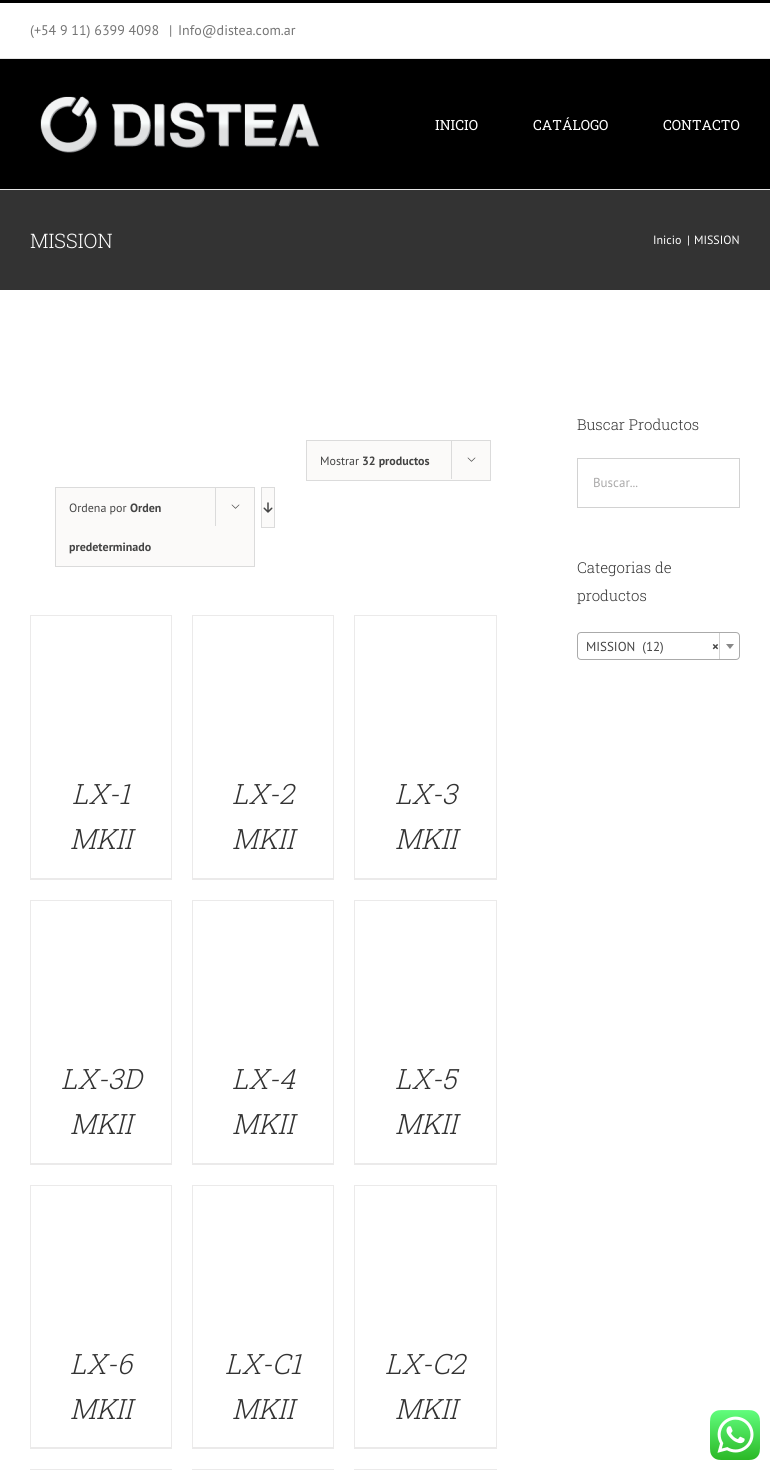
#include <cairo/cairo.h>
#include <math.h>
#include <stddef.h>

static cairo_t *cr;

static void use_color(int r, int g, int b) {
  cairo_set_source_rgb(cr, r / 255.0, g / 255.0, b / 255.0);
}

static void text(double x, double y, const char *s, const char *family, double size, int italic, int bold, int r, int g, int b) {
  cairo_select_font_face(cr, family, italic ? CAIRO_FONT_SLANT_ITALIC : CAIRO_FONT_SLANT_NORMAL,
    bold ? CAIRO_FONT_WEIGHT_BOLD : CAIRO_FONT_WEIGHT_NORMAL);
  cairo_set_font_size(cr, size);
  use_color(r, g, b);
  cairo_move_to(cr, x, y);
  cairo_show_text(cr, s);
}

static void box(double x, double y, double w, double h, int r, int g, int b) {
  use_color(r, g, b);
  cairo_rectangle(cr, x, y, w, h);
  cairo_fill(cr);
}

static void round_rect(double x, double y, double w, double h, double r) {
  cairo_new_sub_path(cr);
  cairo_arc(cr, x + w - r, y + h - r, r, 0, M_PI / 2);
  cairo_arc(cr, x + r, y + h - r, r, M_PI / 2, M_PI);
  cairo_arc(cr, x + r, y + r, r, M_PI, 1.5 * M_PI);
  cairo_arc(cr, x + w - r, y + r, r, 1.5 * M_PI, 2 * M_PI);
  cairo_close_path(cr);
}

static void picture(const char *path, double x, double y, double w, double h) {
  cairo_surface_t *image = cairo_image_surface_create_from_png(path);
  cairo_save(cr);
  cairo_set_source_surface(cr, image, x, y);
  cairo_rectangle(cr, x, y, w, h);
  cairo_fill(cr);
  cairo_restore(cr);
  cairo_surface_destroy(image);
}

static void draw(void) {
  use_color(255, 255, 255);
  cairo_paint(cr);
  box(0, 0, 770, 3, 0, 0, 0);
  box(0, 58, 770, 1, 229, 229, 229);
  box(0, 59, 770, 130, 0, 0, 0);
  box(0, 189, 770, 1, 229, 229, 229);
  picture("img_01.png", 40, 96, 280, 57);
  box(0, 190, 770, 100, 51, 51, 51);
  use_color(251, 250, 249);
  cairo_rectangle(cr, 306.5, 440.5, 184, 40);
  cairo_fill_preserve(cr);
  use_color(219, 219, 219);
  cairo_set_line_width(cr, 1);
  cairo_stroke(cr);
  box(451, 440, 1, 39, 219, 219, 219);
  picture("img_02.png", 467, 457, 9, 5);
  use_color(251, 250, 249);
  cairo_rectangle(cr, 55.5, 487.5, 199, 79);
  cairo_fill_preserve(cr);
  use_color(219, 219, 219);
  cairo_stroke(cr);
  box(215, 487, 1, 39, 219, 219, 219);
  picture("img_02.png", 231, 504, 9, 5);
  use_color(251, 250, 249);
  cairo_rectangle(cr, 261.5, 487.5, 13, 40);
  cairo_fill_preserve(cr);
  use_color(219, 219, 219);
  cairo_stroke(cr);
  picture("img_03.png", 263, 502, 10, 11);
  box(30, 615, 142, 1, 235, 234, 234);
  box(171, 615, 1, 265, 235, 234, 234);
  box(30, 878, 142, 2, 235, 234, 234);
  box(30, 615, 1, 265, 235, 234, 234);
  box(192, 615, 142, 1, 235, 234, 234);
  box(333, 615, 1, 265, 235, 234, 234);
  box(192, 878, 142, 2, 235, 234, 234);
  box(192, 615, 1, 265, 235, 234, 234);
  box(354, 615, 143, 1, 235, 234, 234);
  box(496, 615, 1, 265, 235, 234, 234);
  box(354, 878, 143, 2, 235, 234, 234);
  box(354, 615, 1, 265, 235, 234, 234);
  box(30, 900, 142, 1, 235, 234, 234);
  box(171, 900, 1, 265, 235, 234, 234);
  box(30, 1163, 142, 2, 235, 234, 234);
  box(30, 900, 1, 265, 235, 234, 234);
  box(192, 900, 142, 1, 235, 234, 234);
  box(333, 900, 1, 265, 235, 234, 234);
  box(192, 1163, 142, 2, 235, 234, 234);
  box(192, 900, 1, 265, 235, 234, 234);
  box(354, 900, 143, 1, 235, 234, 234);
  box(496, 900, 1, 265, 235, 234, 234);
  box(354, 1163, 143, 2, 235, 234, 234);
  box(354, 900, 1, 265, 235, 234, 234);
  box(30, 1185, 142, 1, 235, 234, 234);
  box(171, 1185, 1, 264, 235, 234, 234);
  box(30, 1447, 142, 2, 235, 234, 234);
  box(30, 1185, 1, 264, 235, 234, 234);
  box(192, 1185, 142, 1, 235, 234, 234);
  box(333, 1185, 1, 264, 235, 234, 234);
  box(192, 1447, 142, 2, 235, 234, 234);
  box(192, 1185, 1, 264, 235, 234, 234);
  box(354, 1185, 143, 1, 235, 234, 234);
  box(496, 1185, 1, 264, 235, 234, 234);
  box(354, 1447, 143, 2, 235, 234, 234);
  box(354, 1185, 1, 264, 235, 234, 234);
  box(30, 1469, 142, 1, 235, 234, 234);
  box(192, 1469, 142, 1, 235, 234, 234);
  box(354, 1469, 143, 1, 235, 234, 234);
  cairo_rectangle(cr, 577.5, 458.5, 162, 49);
  use_color(210, 210, 210);
  cairo_stroke(cr);
  round_rect(577.5, 632.5, 162, 27, 3.5);
  use_color(170, 170, 170);
  cairo_stroke(cr);
  box(719, 633, 1, 26, 210, 210, 210);
  use_color(136, 136, 136);
  cairo_new_path(cr);
  cairo_move_to(cr, 726, 644);
  cairo_line_to(cr, 734, 644);
  cairo_line_to(cr, 730, 649);
  cairo_close_path(cr);
  cairo_fill(cr);
  picture("img_04.png", 710, 1410, 50, 50);
  text(30, 35, "(+54 9 11) 6399 4098", "PT Sans", 14, 0, 0, 116, 116, 116);
  text(169, 35, "|", "PT Sans", 14, 0, 0, 116, 116, 116);
  text(178, 35, "Info@distea.com.ar", "PT Sans", 14, 0, 0, 116, 116, 116);
  text(435, 130, "INICIO", "Roboto Slab", 14, 0, 0, 255, 255, 255);
  text(533, 130, "CATÁLOGO", "Roboto Slab", 14, 0, 0, 255, 255, 255);
  text(663, 130, "CONTACTO", "Roboto Slab", 14, 0, 0, 255, 255, 255);
  text(30, 248, "MISSION", "Roboto Slab Light", 20, 0, 0, 255, 255, 255);
  text(653, 244, "Inicio", "PT Sans", 12, 0, 0, 255, 255, 255);
  text(687, 244, "|", "PT Sans", 12, 0, 0, 255, 255, 255);
  text(694, 244, "MISSION", "PT Sans", 12, 0, 0, 255, 255, 255);
  text(320, 465, "Mostrar", "PT Sans", 12, 0, 0, 68, 68, 68);
  text(362, 465, "32 productos", "PT Sans", 12, 0, 1, 68, 68, 68);
  text(69, 512, "Ordena por", "PT Sans", 12, 0, 0, 68, 68, 68);
  text(130, 512, "Orden", "PT Sans", 12, 0, 1, 68, 68, 68);
  text(69, 551, "predeterminado", "PT Sans", 12, 0, 1, 68, 68, 68);
  text(72, 804, "LX-1", "Roboto Slab Light", 28, 1, 0, 51, 51, 51);
  text(70, 849, "MKII", "Roboto Slab Light", 28, 1, 0, 51, 51, 51);
  text(232, 804, "LX-2", "Roboto Slab Light", 28, 1, 0, 51, 51, 51);
  text(232, 849, "MKII", "Roboto Slab Light", 28, 1, 0, 51, 51, 51);
  text(395, 804, "LX-3", "Roboto Slab Light", 28, 1, 0, 51, 51, 51);
  text(395, 849, "MKII", "Roboto Slab Light", 28, 1, 0, 51, 51, 51);
  text(61, 1089, "LX-3D", "Roboto Slab Light", 28, 1, 0, 51, 51, 51);
  text(70, 1134, "MKII", "Roboto Slab Light", 28, 1, 0, 51, 51, 51);
  text(232, 1089, "LX-4", "Roboto Slab Light", 28, 1, 0, 51, 51, 51);
  text(232, 1134, "MKII", "Roboto Slab Light", 28, 1, 0, 51, 51, 51);
  text(395, 1089, "LX-5", "Roboto Slab Light", 28, 1, 0, 51, 51, 51);
  text(395, 1134, "MKII", "Roboto Slab Light", 28, 1, 0, 51, 51, 51);
  text(70, 1374, "LX-6", "Roboto Slab Light", 28, 1, 0, 51, 51, 51);
  text(70, 1419, "MKII", "Roboto Slab Light", 28, 1, 0, 51, 51, 51);
  text(225, 1374, "LX-C1", "Roboto Slab Light", 28, 1, 0, 51, 51, 51);
  text(232, 1419, "MKII", "Roboto Slab Light", 28, 1, 0, 51, 51, 51);
  text(385, 1374, "LX-C2", "Roboto Slab Light", 28, 1, 0, 51, 51, 51);
  text(395, 1419, "MKII", "Roboto Slab Light", 28, 1, 0, 51, 51, 51);
  text(577, 430, "Buscar Productos", "Roboto Slab Light", 15, 0, 0, 51, 51, 51);
  text(593, 487, "Buscar...", "PT Sans", 13, 0, 0, 170, 169, 169);
  text(577, 573, "Categorias de", "Roboto Slab Light", 15, 0, 0, 51, 51, 51);
  text(577, 601, "productos", "Roboto Slab Light", 15, 0, 0, 51, 51, 51);
  text(586, 651, "MISSION  (12)", "PT Sans", 13, 0, 0, 68, 68, 68);
  text(712, 651, "×", "PT Sans", 13, 0, 1, 68, 68, 68);
}

int main(void) {
  cairo_surface_t *surface = cairo_image_surface_create(CAIRO_FORMAT_RGB24, 770, 1470);
  cr = cairo_create(surface);
  cairo_font_options_t *options = cairo_font_options_create();
  cairo_font_options_set_hint_metrics(options, CAIRO_HINT_METRICS_OFF);
  cairo_font_options_set_hint_style(options, CAIRO_HINT_STYLE_NONE);
  cairo_set_font_options(cr, options);
  cairo_set_miter_limit(cr, 4);
  draw();
  cairo_surface_write_to_png(surface, "out.png");
  cairo_font_options_destroy(options);
  cairo_destroy(cr);
  cairo_surface_destroy(surface);
  return 0;
}
